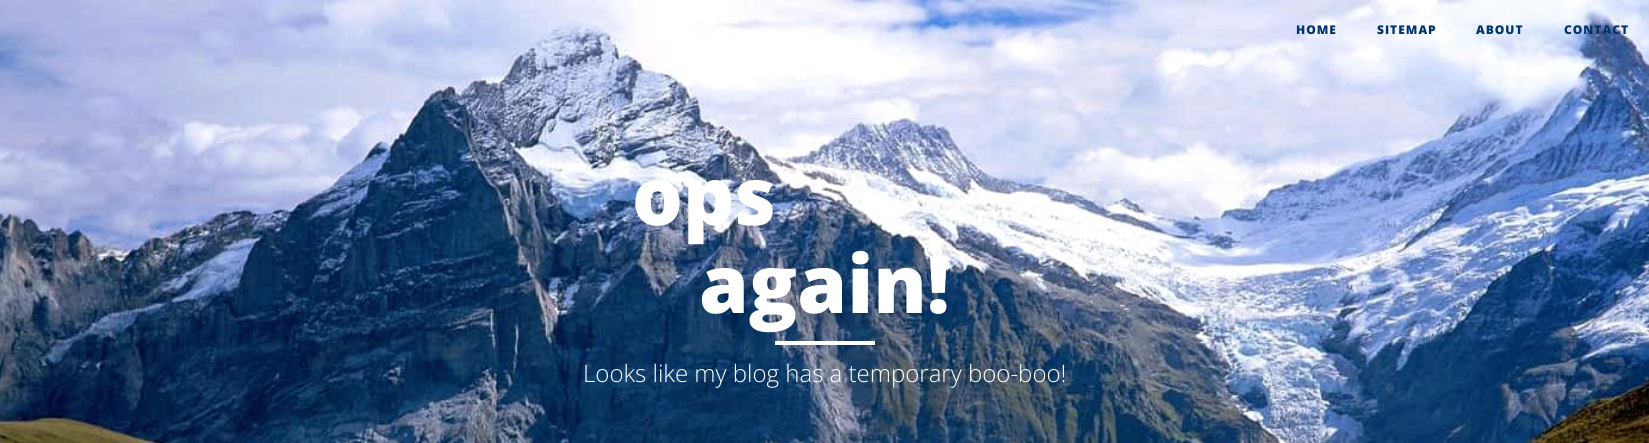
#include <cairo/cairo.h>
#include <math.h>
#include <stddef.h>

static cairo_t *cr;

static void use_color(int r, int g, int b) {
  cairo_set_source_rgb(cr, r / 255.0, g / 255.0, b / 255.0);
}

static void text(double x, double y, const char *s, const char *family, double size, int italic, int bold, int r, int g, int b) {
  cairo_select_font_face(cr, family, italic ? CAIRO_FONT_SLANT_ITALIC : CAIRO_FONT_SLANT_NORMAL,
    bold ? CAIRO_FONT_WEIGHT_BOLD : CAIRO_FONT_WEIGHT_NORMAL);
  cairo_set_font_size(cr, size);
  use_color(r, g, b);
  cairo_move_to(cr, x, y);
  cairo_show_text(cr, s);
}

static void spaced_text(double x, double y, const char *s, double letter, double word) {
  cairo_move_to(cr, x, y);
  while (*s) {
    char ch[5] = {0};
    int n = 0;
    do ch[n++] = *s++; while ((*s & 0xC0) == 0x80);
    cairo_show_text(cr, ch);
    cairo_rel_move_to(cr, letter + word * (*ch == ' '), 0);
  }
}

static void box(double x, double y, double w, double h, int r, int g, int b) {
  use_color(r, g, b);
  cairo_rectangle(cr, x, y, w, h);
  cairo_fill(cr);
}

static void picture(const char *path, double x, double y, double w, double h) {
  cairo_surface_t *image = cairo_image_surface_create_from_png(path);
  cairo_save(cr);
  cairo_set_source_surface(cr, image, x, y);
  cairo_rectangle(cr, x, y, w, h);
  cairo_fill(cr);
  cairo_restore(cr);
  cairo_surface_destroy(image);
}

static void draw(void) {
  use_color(255, 255, 255);
  cairo_paint(cr);
  picture("img_01.png", 0, 0, 1649, 443);
  box(775, 341, 100, 4, 255, 255, 255);
  cairo_select_font_face(cr, "Open Sans ExtraBold", CAIRO_FONT_SLANT_NORMAL, CAIRO_FONT_WEIGHT_NORMAL);
  cairo_set_font_size(cr, 12);
  use_color(0, 52, 109);
  spaced_text(1296, 34, "HOME", 1, 0);
  spaced_text(1377, 34, "SITEMAP", 1, 0);
  spaced_text(1476, 34, "ABOUT", 1, 0);
  spaced_text(1564, 34, "CONTACT", 1, 0);
  text(632, 225, "ops", "Open Sans ExtraBold", 80, 0, 0, 255, 255, 255);
  text(699, 313, "again!", "Open Sans ExtraBold", 80, 0, 0, 255, 255, 255);
  text(583, 382, "Looks like my blog has a temporary boo-boo!", "Open Sans Light", 24, 0, 0, 255, 255, 255);
}

int main(void) {
  cairo_surface_t *surface = cairo_image_surface_create(CAIRO_FORMAT_RGB24, 1649, 443);
  cr = cairo_create(surface);
  cairo_font_options_t *options = cairo_font_options_create();
  cairo_font_options_set_hint_metrics(options, CAIRO_HINT_METRICS_OFF);
  cairo_font_options_set_hint_style(options, CAIRO_HINT_STYLE_NONE);
  cairo_set_font_options(cr, options);
  cairo_set_miter_limit(cr, 4);
  draw();
  cairo_surface_write_to_png(surface, "out.png");
  cairo_font_options_destroy(options);
  cairo_destroy(cr);
  cairo_surface_destroy(surface);
  return 0;
}
